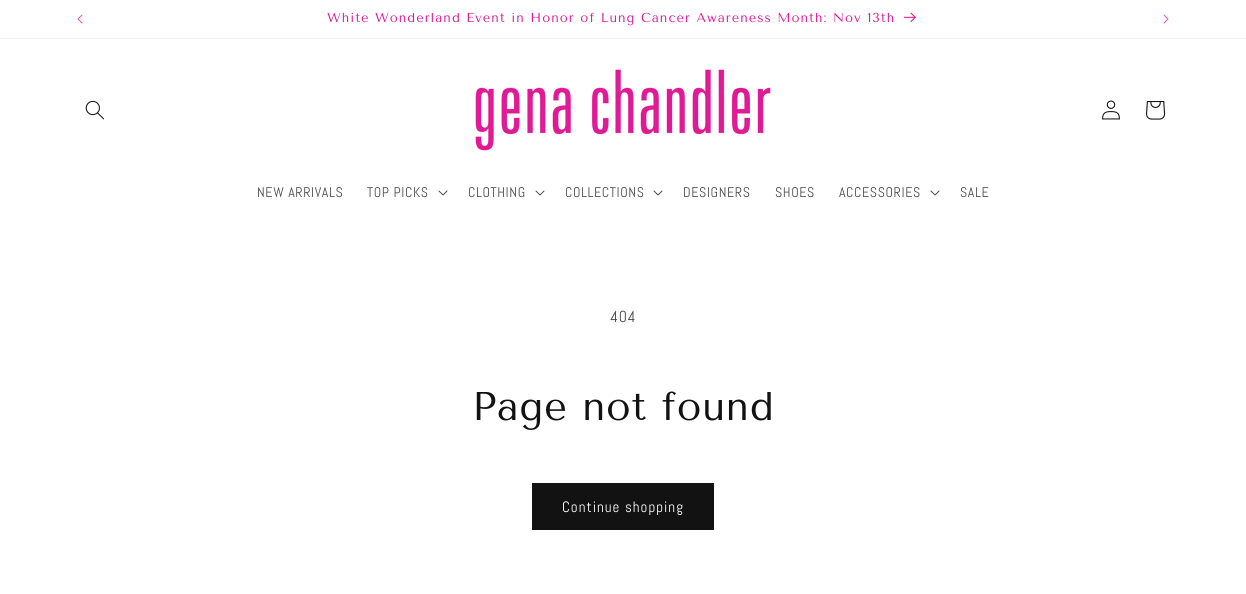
#include <cairo/cairo.h>
#include <math.h>
#include <stddef.h>

static cairo_t *cr;

static void use_color(int r, int g, int b) {
  cairo_set_source_rgb(cr, r / 255.0, g / 255.0, b / 255.0);
}

static void spaced_text(double x, double y, const char *s, double letter, double word) {
  cairo_move_to(cr, x, y);
  while (*s) {
    char ch[5] = {0};
    int n = 0;
    do ch[n++] = *s++; while ((*s & 0xC0) == 0x80);
    cairo_show_text(cr, ch);
    cairo_rel_move_to(cr, letter + word * (*ch == ' '), 0);
  }
}

static void box(double x, double y, double w, double h, int r, int g, int b) {
  use_color(r, g, b);
  cairo_rectangle(cr, x, y, w, h);
  cairo_fill(cr);
}

static void picture(const char *path, double x, double y, double w, double h) {
  cairo_surface_t *image = cairo_image_surface_create_from_png(path);
  cairo_save(cr);
  cairo_set_source_surface(cr, image, x, y);
  cairo_rectangle(cr, x, y, w, h);
  cairo_fill(cr);
  cairo_restore(cr);
  cairo_surface_destroy(image);
}

static void draw(void) {
  use_color(255, 255, 255);
  cairo_paint(cr);
  box(0, 38, 1246, 1, 252, 237, 247);
  picture("img_01.png", 77, 14, 6, 10);
  picture("img_02.png", 904, 12, 12, 11);
  picture("img_03.png", 1163, 14, 6, 10);
  picture("img_04.png", 85, 100, 19, 20);
  picture("img_05.png", 475, 69, 296, 82);
  picture("img_06.png", 1102, 100, 18, 20);
  picture("img_07.png", 1146, 101, 20, 19);
  picture("img_08.png", 438, 190, 10, 6);
  picture("img_08.png", 535, 190, 10, 6);
  picture("img_08.png", 653, 190, 10, 6);
  picture("img_08.png", 930, 190, 10, 6);
  box(532, 483, 182, 47, 18, 18, 18);
  cairo_select_font_face(cr, "Tenor Sans", CAIRO_FONT_SLANT_NORMAL, CAIRO_FONT_WEIGHT_NORMAL);
  cairo_set_font_size(cr, 13);
  use_color(223, 25, 152);
  spaced_text(327, 22, "White Wonderland Event in Honor of Lung Cancer Awareness Month: Nov 13th", 1, 0);
  cairo_select_font_face(cr, "Abel", CAIRO_FONT_SLANT_NORMAL, CAIRO_FONT_WEIGHT_NORMAL);
  cairo_set_font_size(cr, 14);
  use_color(77, 77, 77);
  spaced_text(257, 197, "NEW ARRIVALS", 0.6, 0);
  spaced_text(367, 197, "TOP PICKS", 0.6, 0);
  spaced_text(468, 197, "CLOTHING", 0.6, 0);
  spaced_text(565, 197, "COLLECTIONS", 0.6, 0);
  spaced_text(683, 197, "DESIGNERS", 0.6, 0);
  spaced_text(775, 197, "SHOES", 0.6, 0);
  spaced_text(839, 197, "ACCESSORIES", 0.6, 0);
  spaced_text(960, 197, "SALE", 0.6, 0);
  cairo_set_font_size(cr, 16);
  spaced_text(610, 322, "404", 0.6, 0);
  cairo_select_font_face(cr, "Tenor Sans", CAIRO_FONT_SLANT_NORMAL, CAIRO_FONT_WEIGHT_NORMAL);
  cairo_set_font_size(cr, 40);
  use_color(18, 18, 18);
  spaced_text(472, 420, "Page not found", 0.6, 0);
  cairo_select_font_face(cr, "Abel", CAIRO_FONT_SLANT_NORMAL, CAIRO_FONT_WEIGHT_NORMAL);
  cairo_set_font_size(cr, 15);
  use_color(255, 255, 255);
  spaced_text(562, 512, "Continue shopping", 1, 0);
}

int main(void) {
  cairo_surface_t *surface = cairo_image_surface_create(CAIRO_FORMAT_RGB24, 1246, 594);
  cr = cairo_create(surface);
  cairo_font_options_t *options = cairo_font_options_create();
  cairo_font_options_set_hint_metrics(options, CAIRO_HINT_METRICS_OFF);
  cairo_font_options_set_hint_style(options, CAIRO_HINT_STYLE_NONE);
  cairo_set_font_options(cr, options);
  cairo_set_miter_limit(cr, 4);
  draw();
  cairo_surface_write_to_png(surface, "out.png");
  cairo_font_options_destroy(options);
  cairo_destroy(cr);
  cairo_surface_destroy(surface);
  return 0;
}
